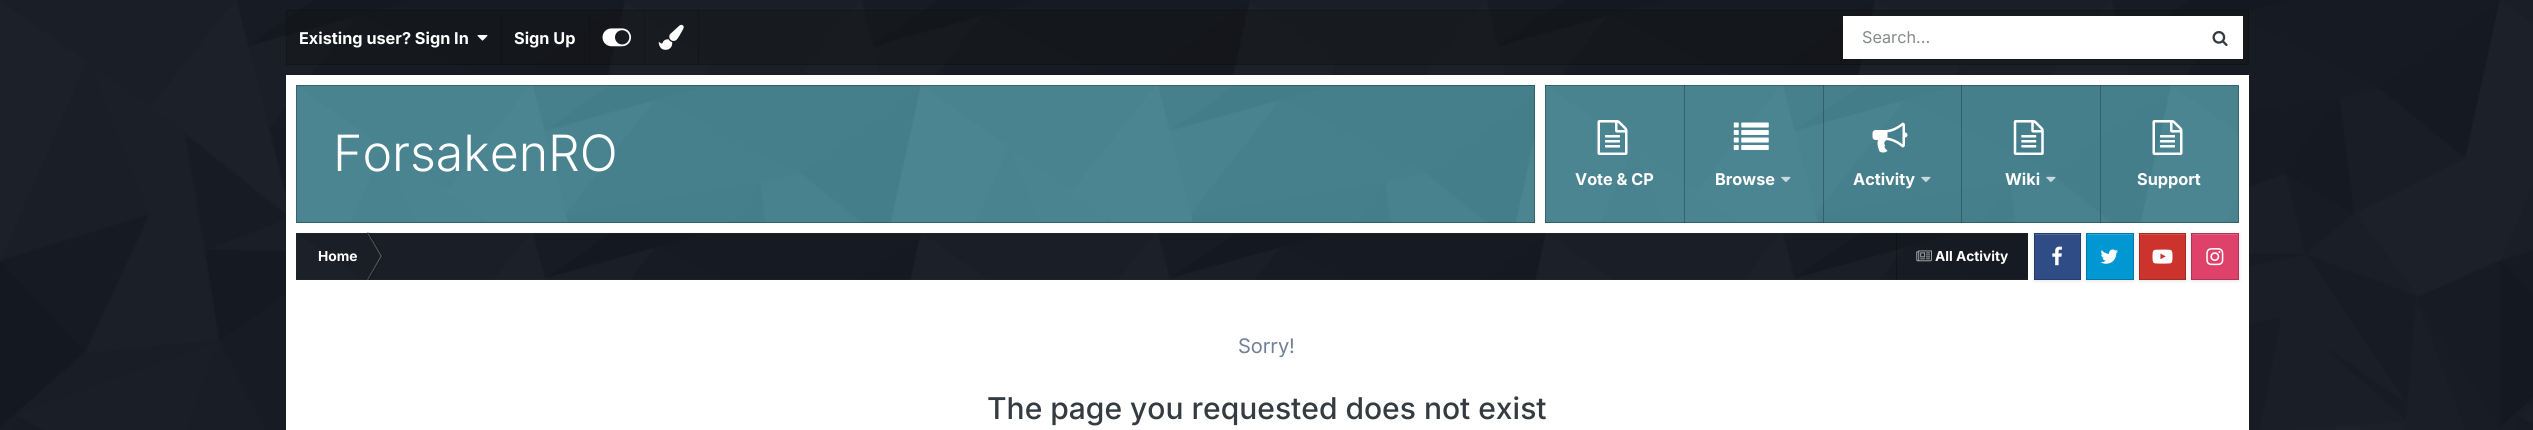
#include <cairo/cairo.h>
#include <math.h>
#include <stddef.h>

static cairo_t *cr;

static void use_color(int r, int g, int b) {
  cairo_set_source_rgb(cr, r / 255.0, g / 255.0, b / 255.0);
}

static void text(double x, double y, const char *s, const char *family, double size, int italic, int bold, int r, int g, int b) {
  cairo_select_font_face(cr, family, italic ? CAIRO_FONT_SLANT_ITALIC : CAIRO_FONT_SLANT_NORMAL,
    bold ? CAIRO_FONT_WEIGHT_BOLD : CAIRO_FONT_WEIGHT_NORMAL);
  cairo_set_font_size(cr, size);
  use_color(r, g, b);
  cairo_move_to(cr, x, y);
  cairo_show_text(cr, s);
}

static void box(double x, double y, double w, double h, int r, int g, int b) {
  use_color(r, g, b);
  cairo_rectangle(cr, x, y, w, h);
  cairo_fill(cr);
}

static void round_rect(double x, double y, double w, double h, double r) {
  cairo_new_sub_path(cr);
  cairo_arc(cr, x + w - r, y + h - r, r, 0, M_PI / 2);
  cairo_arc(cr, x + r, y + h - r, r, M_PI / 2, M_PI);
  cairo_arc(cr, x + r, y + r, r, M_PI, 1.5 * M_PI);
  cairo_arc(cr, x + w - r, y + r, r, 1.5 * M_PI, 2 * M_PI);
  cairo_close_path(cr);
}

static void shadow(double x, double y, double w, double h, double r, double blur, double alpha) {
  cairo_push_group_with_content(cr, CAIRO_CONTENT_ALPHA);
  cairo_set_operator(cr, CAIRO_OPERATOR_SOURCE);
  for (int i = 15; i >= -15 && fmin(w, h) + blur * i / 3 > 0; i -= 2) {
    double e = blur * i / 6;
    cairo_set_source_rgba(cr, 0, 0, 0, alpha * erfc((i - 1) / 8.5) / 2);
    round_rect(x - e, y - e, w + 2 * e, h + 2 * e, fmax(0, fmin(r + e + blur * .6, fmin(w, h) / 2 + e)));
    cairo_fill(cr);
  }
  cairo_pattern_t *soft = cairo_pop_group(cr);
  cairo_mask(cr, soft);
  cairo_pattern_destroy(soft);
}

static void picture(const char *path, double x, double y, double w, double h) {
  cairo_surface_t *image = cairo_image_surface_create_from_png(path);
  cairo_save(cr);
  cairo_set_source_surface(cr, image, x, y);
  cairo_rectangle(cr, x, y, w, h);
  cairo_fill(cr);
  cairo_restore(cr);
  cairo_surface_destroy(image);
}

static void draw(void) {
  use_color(18, 22, 31);
  cairo_paint(cr);
  picture("img_01.png", 0, 0, 2533, 430);
  cairo_set_source_rgba(cr, 0.078, 0.078, 0.078, 0.35);
  cairo_rectangle(cr, 286, 10, 1963, 55);
  cairo_fill(cr);
  cairo_rectangle(cr, 286.5, 10.5, 1962, 54);
  cairo_set_source_rgba(cr, 0, 0, 0, 0.2);
  cairo_set_line_width(cr, 1);
  cairo_stroke(cr);
  box(501, 11, 1, 53, 17, 19, 23);
  picture("img_02.png", 477, 35, 11, 6);
  box(589, 11, 1, 53, 17, 19, 23);
  box(644, 11, 1, 53, 20, 22, 27);
  picture("img_03.png", 602, 28, 30, 19);
  box(698, 11, 1, 53, 19, 21, 26);
  picture("img_04.png", 658, 24, 26, 26);
  box(1843, 16, 400, 43, 255, 255, 255);
  picture("img_05.png", 2212, 31, 16, 16);
  box(286, 75, 1963, 355, 255, 255, 255);
  box(296, 85, 1943, 138, 69, 129, 142);
  picture("img_06.png", 296, 85, 1943, 138);
  cairo_rectangle(cr, 296.5, 85.5, 1942, 137);
  cairo_set_source_rgba(cr, 0, 0, 0, 0.25);
  cairo_stroke(cr);
  cairo_new_path(cr);
  cairo_move_to(cr, 1534, 85);
  cairo_line_to(cr, 1534, 223);
  cairo_line_to(cr, 1544, 223);
  cairo_line_to(cr, 1544, 222);
  cairo_line_to(cr, 1535, 222);
  cairo_line_to(cr, 1535, 85);
  cairo_close_path(cr);
  cairo_fill(cr);
  box(1535, 85, 10, 138, 255, 255, 255);
  cairo_set_source_rgba(cr, 0, 0, 0, 0.25);
  cairo_rectangle(cr, 1545, 85, 1, 138);
  cairo_fill(cr);
  picture("img_07.png", 1597, 120, 31, 35);
  cairo_rectangle(cr, 1684, 85, 1, 138);
  cairo_fill(cr);
  picture("img_08.png", 1733, 122, 36, 28);
  picture("img_09.png", 1781, 176, 10, 6);
  cairo_rectangle(cr, 1823, 85, 1, 138);
  cairo_fill(cr);
  picture("img_10.png", 1872, 122, 36, 31);
  picture("img_11.png", 1921, 176, 10, 6);
  cairo_rectangle(cr, 1961, 85, 1, 138);
  cairo_fill(cr);
  picture("img_12.png", 2013, 120, 31, 35);
  picture("img_13.png", 2046, 176, 10, 6);
  cairo_rectangle(cr, 2100, 85, 1, 138);
  cairo_fill(cr);
  picture("img_14.png", 2152, 120, 31, 35);
  box(296, 233, 1732, 47, 18, 22, 31);
  picture("img_15.png", 296, 232, 1731, 48);
  use_color(83, 86, 93);
  cairo_new_path(cr);
  cairo_move_to(cr, 367, 232.5);
  cairo_line_to(cr, 368, 232.5);
  cairo_line_to(cr, 382, 256);
  cairo_line_to(cr, 380.5, 256);
  cairo_close_path(cr);
  cairo_fill(cr);
  cairo_set_source_rgba(cr, 0, 0, 0, 0.3);
  cairo_new_path(cr);
  cairo_move_to(cr, 368, 232.5);
  cairo_line_to(cr, 369.5, 232.5);
  cairo_line_to(cr, 383, 256);
  cairo_line_to(cr, 382, 256);
  cairo_close_path(cr);
  cairo_fill(cr);
  use_color(83, 86, 93);
  cairo_new_path(cr);
  cairo_move_to(cr, 367, 280);
  cairo_line_to(cr, 368, 280);
  cairo_line_to(cr, 382, 256);
  cairo_line_to(cr, 380.5, 256);
  cairo_close_path(cr);
  cairo_fill(cr);
  cairo_set_source_rgba(cr, 0, 0, 0, 0.3);
  cairo_new_path(cr);
  cairo_move_to(cr, 368, 280);
  cairo_line_to(cr, 369.5, 280);
  cairo_line_to(cr, 383, 256);
  cairo_line_to(cr, 382, 256);
  cairo_close_path(cr);
  cairo_fill(cr);
  cairo_rectangle(cr, 1896, 233, 1, 47);
  cairo_fill(cr);
  picture("img_16.png", 1916, 250, 16, 12);
  cairo_rectangle(cr, 296.5, 233.5, 1731, 46);
  cairo_set_source_rgba(cr, 0.208, 0.235, 0.255, 0.2);
  cairo_stroke(cr);
  use_color(0, 0, 0);
  shadow(2034, 234, 47, 47, 0, 2, 0.1);
  box(2035, 235, 45, 44, 48, 76, 135);
  box(2035, 234, 45, 1, 79, 103, 153);
  picture("img_17.png", 2052, 246, 10, 20);
  cairo_rectangle(cr, 2034.5, 233.5, 46, 46);
  use_color(38, 61, 108);
  cairo_stroke(cr);
  use_color(0, 0, 0);
  shadow(2086, 234, 48, 47, 0, 2, 0.1);
  box(2087, 234, 46, 45, 0, 151, 211);
  box(2088, 234, 45, 1, 38, 167, 218);
  picture("img_18.png", 2100, 249, 18, 15);
  cairo_rectangle(cr, 2086.5, 233.5, 47, 46);
  use_color(0, 121, 169);
  cairo_stroke(cr);
  use_color(0, 0, 0);
  shadow(2139, 234, 47, 47, 0, 2, 0.1);
  box(2140, 235, 45, 44, 204, 51, 45);
  box(2140, 234, 45, 1, 212, 82, 77);
  picture("img_19.png", 2152, 249, 21, 15);
  cairo_rectangle(cr, 2139.5, 233.5, 46, 46);
  use_color(163, 41, 36);
  cairo_stroke(cr);
  use_color(0, 0, 0);
  shadow(2191, 234, 48, 47, 0, 2, 0.1);
  box(2192, 234, 46, 45, 222, 65, 106);
  box(2193, 234, 45, 1, 227, 94, 128);
  picture("img_20.png", 2206, 248, 18, 18);
  cairo_rectangle(cr, 2191.5, 233.5, 47, 46);
  use_color(178, 52, 85);
  cairo_stroke(cr);
  text(299, 44, "Existing user? Sign In", "Inter", 16.25, 0, 1, 255, 255, 255);
  text(514, 44, "Sign Up", "Inter", 16.25, 0, 1, 255, 255, 255);
  text(1862, 43, "Search...", "Inter", 16.25, 0, 0, 134, 138, 141);
  text(333, 171, "ForsakenRO", "Inter Light", 50, 0, 0, 255, 255, 255);
  text(1575, 185, "Vote & CP", "Inter", 16.25, 0, 1, 255, 255, 255);
  text(1715, 185, "Browse", "Inter", 16.25, 0, 1, 255, 255, 255);
  text(1853, 185, "Activity", "Inter", 16.25, 0, 1, 255, 255, 255);
  text(2005, 185, "Wiki", "Inter", 16.25, 0, 1, 255, 255, 255);
  text(2137, 185, "Support", "Inter", 16.25, 0, 1, 255, 255, 255);
  text(318, 261, "Home", "Inter", 13.75, 0, 1, 255, 255, 255);
  text(1935, 261, "All Activity", "Inter", 13.75, 0, 1, 255, 255, 255);
  text(1238, 353, "Sorry!", "Inter", 20, 0, 0, 113, 128, 150);
  text(987, 419, "The page you requested does not exist", "Inter Medium", 30, 0, 0, 53, 60, 65);
}

int main(void) {
  cairo_surface_t *surface = cairo_image_surface_create(CAIRO_FORMAT_RGB24, 2533, 430);
  cr = cairo_create(surface);
  cairo_font_options_t *options = cairo_font_options_create();
  cairo_font_options_set_hint_metrics(options, CAIRO_HINT_METRICS_OFF);
  cairo_font_options_set_hint_style(options, CAIRO_HINT_STYLE_NONE);
  cairo_set_font_options(cr, options);
  cairo_set_miter_limit(cr, 4);
  draw();
  cairo_surface_write_to_png(surface, "out.png");
  cairo_font_options_destroy(options);
  cairo_destroy(cr);
  cairo_surface_destroy(surface);
  return 0;
}
